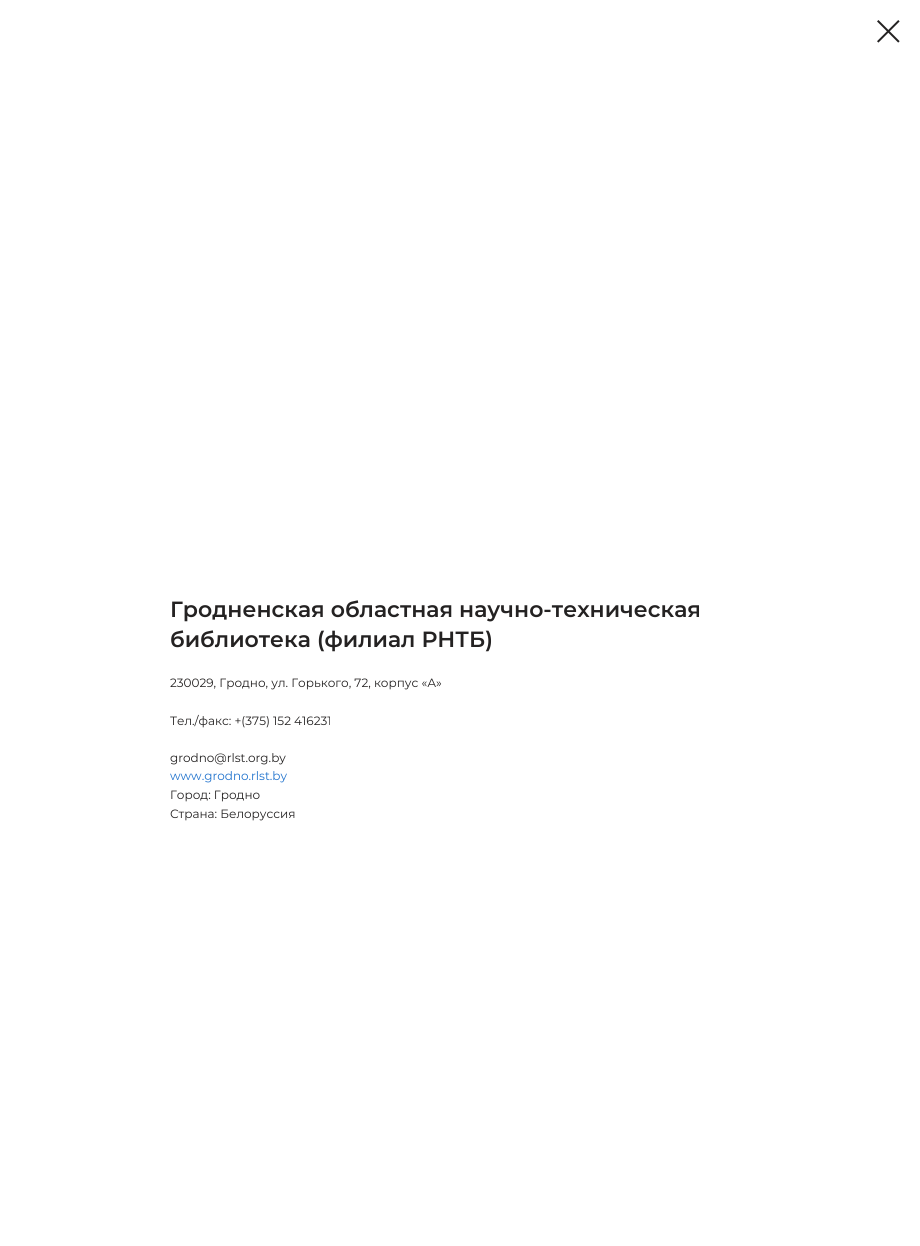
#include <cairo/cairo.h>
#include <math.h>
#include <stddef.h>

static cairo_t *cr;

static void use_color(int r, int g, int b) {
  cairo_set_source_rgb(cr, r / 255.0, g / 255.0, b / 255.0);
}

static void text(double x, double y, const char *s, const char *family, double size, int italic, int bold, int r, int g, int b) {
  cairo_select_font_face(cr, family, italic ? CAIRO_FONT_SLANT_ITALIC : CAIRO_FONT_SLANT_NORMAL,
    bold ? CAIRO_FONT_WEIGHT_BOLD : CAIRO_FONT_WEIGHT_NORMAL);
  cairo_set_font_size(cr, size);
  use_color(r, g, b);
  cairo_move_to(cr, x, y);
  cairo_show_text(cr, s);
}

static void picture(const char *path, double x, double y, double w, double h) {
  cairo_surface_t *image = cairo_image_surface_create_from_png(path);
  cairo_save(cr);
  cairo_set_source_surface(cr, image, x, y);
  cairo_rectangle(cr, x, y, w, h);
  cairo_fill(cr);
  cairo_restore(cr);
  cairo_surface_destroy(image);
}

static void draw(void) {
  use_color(255, 255, 255);
  cairo_paint(cr);
  picture("img_01.png", 877, 20, 23, 23);
  text(170, 617, "Гродненская областная научно-техническая", "Montserrat SemiBold", 22, 0, 0, 36, 34, 34);
  text(170, 647, "библиотека (филиал РНТБ)", "Montserrat SemiBold", 22, 0, 0, 36, 34, 34);
  text(170, 687, "230029, Гродно, ул. Горького, 72, корпус «А»", "Montserrat", 12, 0, 0, 36, 34, 34);
  text(170, 725, "Тел./факс: +(375) 152 416231", "Montserrat", 12, 0, 0, 36, 34, 34);
  text(170, 762, "grodno@rlst.org.by", "Montserrat", 12, 0, 0, 36, 34, 34);
  text(170, 780, "www.grodno.rlst.by", "Montserrat", 12, 0, 0, 33, 115, 205);
  text(170, 799, "Город: Гродно", "Montserrat", 12, 0, 0, 36, 34, 34);
  text(170, 818, "Страна: Белоруссия", "Montserrat", 12, 0, 0, 36, 34, 34);
}

int main(void) {
  cairo_surface_t *surface = cairo_image_surface_create(CAIRO_FORMAT_RGB24, 920, 1246);
  cr = cairo_create(surface);
  cairo_font_options_t *options = cairo_font_options_create();
  cairo_font_options_set_hint_metrics(options, CAIRO_HINT_METRICS_OFF);
  cairo_font_options_set_hint_style(options, CAIRO_HINT_STYLE_NONE);
  cairo_set_font_options(cr, options);
  cairo_set_miter_limit(cr, 4);
  draw();
  cairo_surface_write_to_png(surface, "out.png");
  cairo_font_options_destroy(options);
  cairo_destroy(cr);
  cairo_surface_destroy(surface);
  return 0;
}
